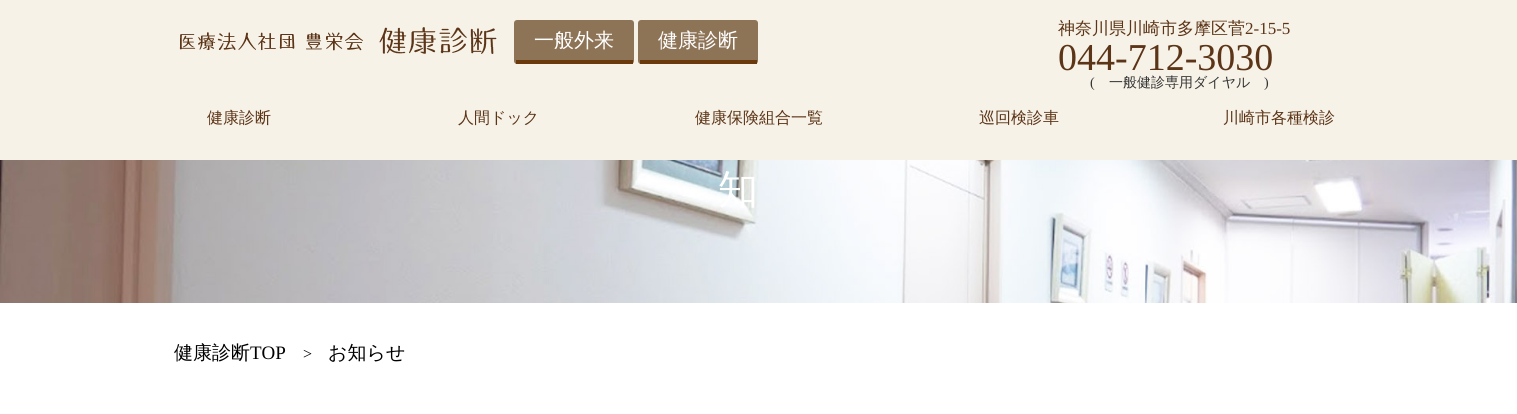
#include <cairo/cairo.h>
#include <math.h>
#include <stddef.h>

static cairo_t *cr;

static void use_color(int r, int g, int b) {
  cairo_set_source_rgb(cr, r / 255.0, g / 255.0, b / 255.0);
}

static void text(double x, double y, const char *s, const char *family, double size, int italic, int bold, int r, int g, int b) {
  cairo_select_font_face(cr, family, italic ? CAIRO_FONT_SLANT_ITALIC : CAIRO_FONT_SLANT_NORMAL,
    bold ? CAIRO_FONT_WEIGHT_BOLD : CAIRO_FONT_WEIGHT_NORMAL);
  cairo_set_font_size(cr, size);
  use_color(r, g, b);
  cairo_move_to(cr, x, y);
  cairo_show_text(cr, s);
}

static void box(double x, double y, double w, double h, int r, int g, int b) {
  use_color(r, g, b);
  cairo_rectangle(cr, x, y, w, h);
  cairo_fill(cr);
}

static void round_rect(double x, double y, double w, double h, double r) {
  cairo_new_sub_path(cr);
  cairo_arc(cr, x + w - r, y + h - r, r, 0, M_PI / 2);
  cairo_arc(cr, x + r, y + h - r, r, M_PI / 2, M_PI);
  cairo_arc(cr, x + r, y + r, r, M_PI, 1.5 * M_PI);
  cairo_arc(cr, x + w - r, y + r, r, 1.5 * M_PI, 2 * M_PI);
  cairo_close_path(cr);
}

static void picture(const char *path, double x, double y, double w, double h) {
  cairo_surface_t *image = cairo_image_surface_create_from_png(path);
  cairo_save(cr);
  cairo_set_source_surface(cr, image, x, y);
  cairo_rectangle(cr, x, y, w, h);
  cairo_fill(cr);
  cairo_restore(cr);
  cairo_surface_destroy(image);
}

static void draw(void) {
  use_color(255, 255, 255);
  cairo_paint(cr);
  box(0, 0, 1517, 160, 246, 242, 231);
  picture("img_01.png", 179, 27, 318, 27);
  use_color(142, 116, 87);
  round_rect(514, 20, 120, 44, 3);
  cairo_fill(cr);
  box(516, 60, 117, 4, 106, 58, 12);
  use_color(142, 116, 87);
  round_rect(638, 20, 120, 44, 3);
  cairo_fill(cr);
  box(640, 60, 117, 4, 106, 58, 12);
  picture("img_02.png", 0, 160, 1517, 143);
  text(534, 47, "一般外来", "WenQuanYi Zen Hei Medium", 20, 0, 0, 255, 255, 255);
  text(658, 47, "健康診断", "WenQuanYi Zen Hei Medium", 20, 0, 0, 255, 255, 255);
  text(1058, 34, "神奈川県川崎市多摩区菅", "WenQuanYi Zen Hei Medium", 17, 0, 0, 92, 52, 23);
  text(1245, 34, "2-15-5", "Liberation Serif", 17, 0, 0, 92, 52, 23);
  text(1058, 70, "044-712-3030", "Liberation Serif", 38, 0, 0, 92, 52, 23);
  text(1090, 87, "(", "Liberation Serif", 14, 0, 0, 51, 51, 51);
  text(1109, 87, "一般健診専用ダイヤル", "WenQuanYi Zen Hei Medium", 14, 0, 0, 51, 51, 51);
  text(1264, 87, ")", "Liberation Serif", 14, 0, 0, 51, 51, 51);
  text(207, 123, "健康診断", "WenQuanYi Zen Hei Medium", 16, 0, 0, 92, 52, 23);
  text(458, 123, "人間ドック", "WenQuanYi Zen Hei Medium", 16, 0, 0, 92, 52, 23);
  text(695, 123, "健康保険組合一覧", "WenQuanYi Zen Hei Medium", 16, 0, 0, 92, 52, 23);
  text(979, 123, "巡回検診車", "WenQuanYi Zen Hei Medium", 16, 0, 0, 92, 52, 23);
  text(1223, 123, "川崎市各種検診", "WenQuanYi Zen Hei Medium", 16, 0, 0, 92, 52, 23);
  text(718, 203, "知", "WenQuanYi Zen Hei Medium", 40, 0, 0, 255, 255, 255);
  text(174, 359, "健康診断", "WenQuanYi Zen Hei Medium", 19, 0, 0, 0, 0, 0);
  text(250, 359, "TOP", "Liberation Serif", 19, 0, 0, 0, 0, 0);
  text(303, 359, ">", "Liberation Serif", 16, 0, 0, 0, 0, 0);
  text(328, 359, "お知らせ", "WenQuanYi Zen Hei Medium", 19, 0, 0, 0, 0, 0);
}

int main(void) {
  cairo_surface_t *surface = cairo_image_surface_create(CAIRO_FORMAT_RGB24, 1517, 414);
  cr = cairo_create(surface);
  cairo_font_options_t *options = cairo_font_options_create();
  cairo_font_options_set_hint_metrics(options, CAIRO_HINT_METRICS_OFF);
  cairo_font_options_set_hint_style(options, CAIRO_HINT_STYLE_NONE);
  cairo_set_font_options(cr, options);
  cairo_set_miter_limit(cr, 4);
  draw();
  cairo_surface_write_to_png(surface, "out.png");
  cairo_font_options_destroy(options);
  cairo_destroy(cr);
  cairo_surface_destroy(surface);
  return 0;
}
